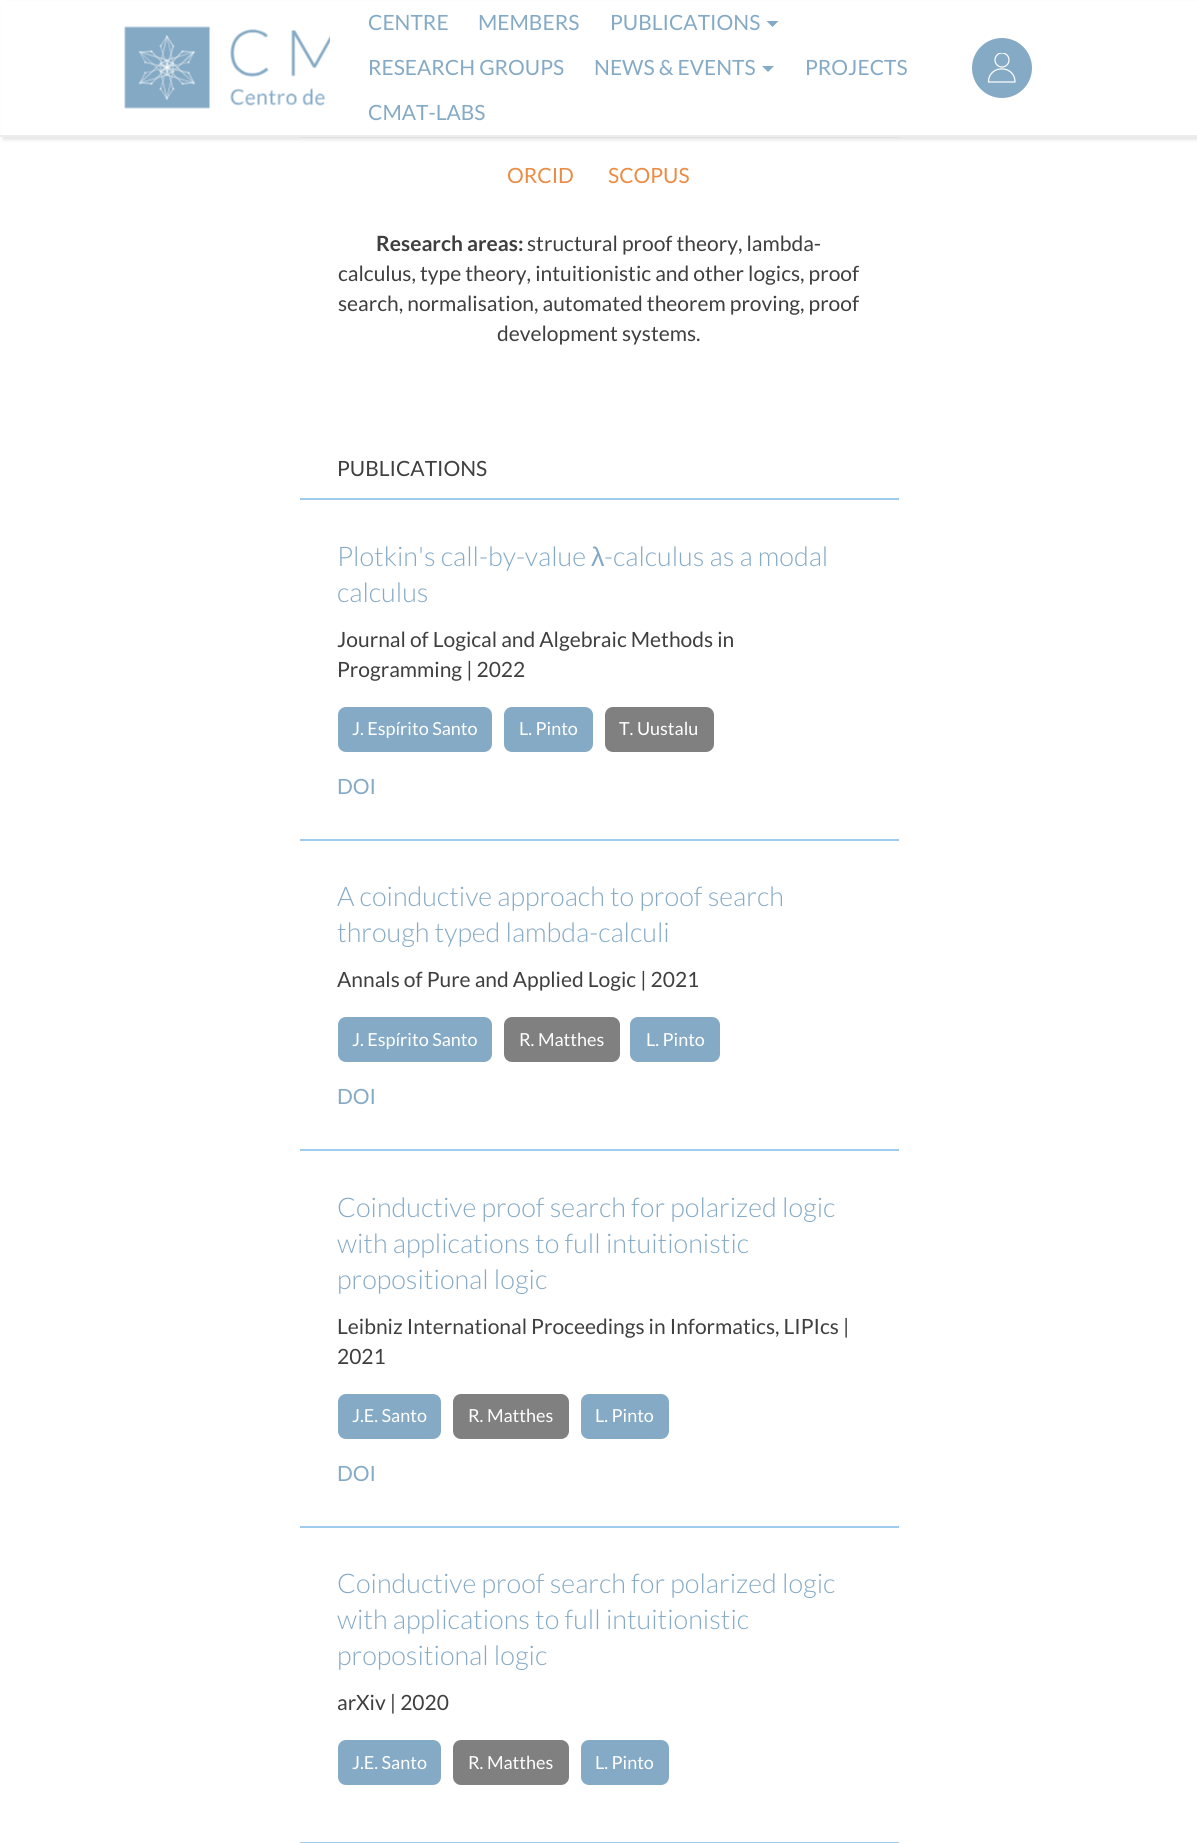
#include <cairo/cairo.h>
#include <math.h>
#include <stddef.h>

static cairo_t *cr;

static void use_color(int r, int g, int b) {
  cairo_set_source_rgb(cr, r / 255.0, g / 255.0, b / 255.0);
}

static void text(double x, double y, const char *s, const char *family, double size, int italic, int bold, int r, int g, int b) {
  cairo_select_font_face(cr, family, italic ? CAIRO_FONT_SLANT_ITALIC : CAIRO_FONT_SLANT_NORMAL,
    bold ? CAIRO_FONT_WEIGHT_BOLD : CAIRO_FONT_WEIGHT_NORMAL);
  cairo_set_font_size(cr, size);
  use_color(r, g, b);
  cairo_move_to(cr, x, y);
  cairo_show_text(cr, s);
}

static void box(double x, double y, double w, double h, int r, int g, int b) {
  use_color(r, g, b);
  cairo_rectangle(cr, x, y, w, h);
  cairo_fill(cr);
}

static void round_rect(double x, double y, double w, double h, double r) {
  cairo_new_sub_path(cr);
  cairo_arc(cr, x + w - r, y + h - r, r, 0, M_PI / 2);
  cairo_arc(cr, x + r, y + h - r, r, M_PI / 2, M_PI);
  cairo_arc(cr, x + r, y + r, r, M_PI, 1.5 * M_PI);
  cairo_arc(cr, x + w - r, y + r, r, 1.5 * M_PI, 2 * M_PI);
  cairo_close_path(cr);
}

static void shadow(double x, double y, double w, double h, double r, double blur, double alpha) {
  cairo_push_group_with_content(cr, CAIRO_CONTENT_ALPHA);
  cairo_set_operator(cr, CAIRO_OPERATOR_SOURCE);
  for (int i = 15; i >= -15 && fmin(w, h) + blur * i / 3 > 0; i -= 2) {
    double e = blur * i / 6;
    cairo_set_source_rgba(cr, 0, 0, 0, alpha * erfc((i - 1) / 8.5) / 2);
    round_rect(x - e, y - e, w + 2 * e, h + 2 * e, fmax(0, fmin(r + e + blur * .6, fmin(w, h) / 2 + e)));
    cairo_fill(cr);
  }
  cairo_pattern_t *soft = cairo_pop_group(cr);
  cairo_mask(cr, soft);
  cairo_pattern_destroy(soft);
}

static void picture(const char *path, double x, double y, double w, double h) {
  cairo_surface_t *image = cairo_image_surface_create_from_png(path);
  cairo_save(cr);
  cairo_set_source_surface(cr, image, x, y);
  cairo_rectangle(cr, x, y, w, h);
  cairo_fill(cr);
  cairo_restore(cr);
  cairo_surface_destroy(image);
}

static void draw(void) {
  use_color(255, 255, 255);
  cairo_paint(cr);
  box(300, 137, 599, 1, 242, 247, 252);
  use_color(63, 63, 63);
  shadow(3, 3, 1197, 137, 0, 1.5, 0.13);
  box(1, 1, 1196, 134, 255, 255, 255);
  box(0, 135, 1197, 2, 239, 236, 234);
  use_color(133, 170, 198);
  cairo_new_path(cr);
  cairo_move_to(cr, 766.5, 21);
  cairo_line_to(cr, 778.5, 21);
  cairo_line_to(cr, 772.5, 27);
  cairo_close_path(cr);
  cairo_fill(cr);
  cairo_new_path(cr);
  cairo_move_to(cr, 762, 66);
  cairo_line_to(cr, 774, 66);
  cairo_line_to(cr, 768, 72);
  cairo_close_path(cr);
  cairo_fill(cr);
  picture("img_01.png", 124, 26, 206, 83);
  cairo_arc(cr, 1002, 68, 30, 0, 2 * M_PI);
  cairo_fill(cr);
  cairo_save(cr);
  cairo_rectangle(cr, 987, 53, 30, 30);
  cairo_clip(cr);
  cairo_arc(cr, 1002, 60, 7, 0, 2 * M_PI);
  use_color(255, 255, 255);
  cairo_set_line_width(cr, 1.2);
  cairo_stroke(cr);
  cairo_restore(cr);
  cairo_new_path(cr);
  cairo_move_to(cr, 1015, 82);
  cairo_curve_to(cr, 1015, 64.5, 988.5, 64.5, 988.5, 82);
  cairo_close_path(cr);
  use_color(255, 255, 255);
  cairo_set_line_width(cr, 1.2);
  cairo_stroke(cr);
  box(300, 498, 599, 2, 159, 203, 237);
  use_color(133, 170, 198);
  round_rect(338, 707, 154, 45, 8);
  cairo_fill(cr);
  round_rect(504, 707, 89, 45, 8);
  cairo_fill(cr);
  use_color(128, 128, 128);
  round_rect(605, 707, 109, 45, 8);
  cairo_fill(cr);
  box(300, 839, 599, 2, 159, 203, 237);
  use_color(133, 170, 198);
  round_rect(338, 1017, 154, 45, 8);
  cairo_fill(cr);
  use_color(128, 128, 128);
  round_rect(504, 1017, 116, 45, 8);
  cairo_fill(cr);
  use_color(133, 170, 198);
  round_rect(630, 1017, 90, 45, 8);
  cairo_fill(cr);
  box(300, 1149, 599, 2, 159, 203, 237);
  use_color(133, 170, 198);
  round_rect(338, 1394, 103, 45, 8);
  cairo_fill(cr);
  use_color(128, 128, 128);
  round_rect(453, 1394, 116, 45, 8);
  cairo_fill(cr);
  use_color(133, 170, 198);
  round_rect(581, 1394, 88, 45, 8);
  cairo_fill(cr);
  box(300, 1526, 599, 2, 159, 203, 237);
  use_color(133, 170, 198);
  round_rect(338, 1740, 103, 45, 8);
  cairo_fill(cr);
  use_color(128, 128, 128);
  round_rect(453, 1740, 116, 45, 8);
  cairo_fill(cr);
  use_color(133, 170, 198);
  round_rect(581, 1740, 88, 45, 8);
  cairo_fill(cr);
  box(300, 1842, 599, 1, 159, 203, 237);
  text(368, 30, "CENTRE", "Lato", 21, 0, 0, 133, 170, 198);
  text(478, 30, "MEMBERS", "Lato", 21, 0, 0, 133, 170, 198);
  text(610, 30, "PUBLICATIONS", "Lato", 21, 0, 0, 133, 170, 198);
  text(368, 75, "RESEARCH GROUPS", "Lato", 21, 0, 0, 133, 170, 198);
  text(594, 75, "NEWS & EVENTS", "Lato", 21, 0, 0, 133, 170, 198);
  text(805, 75, "PROJECTS", "Lato", 21, 0, 0, 133, 170, 198);
  text(368, 120, "CMAT-LABS", "Lato", 21, 0, 0, 133, 170, 198);
  text(507, 183, "ORCID", "Lato", 21, 0, 0, 236, 139, 68);
  text(608, 183, "SCOPUS", "Lato", 21, 0, 0, 236, 139, 68);
  text(376, 251, "Research areas:", "Lato", 21, 0, 1, 63, 63, 63);
  text(527, 251, "structural proof theory, lambda-", "Lato", 21, 0, 0, 63, 63, 63);
  text(338, 281, "calculus, type theory, intuitionistic and other logics, proof", "Lato", 21, 0, 0, 63, 63, 63);
  text(338, 311, "search, normalisation, automated theorem proving, proof", "Lato", 21, 0, 0, 63, 63, 63);
  text(497, 341, "development systems.", "Lato", 21, 0, 0, 63, 63, 63);
  text(337, 476, "PUBLICATIONS", "Lato", 21, 0, 0, 63, 63, 63);
  text(337, 566, "Plotkin's call-by-value", "Lato Light", 27, 0, 0, 133, 170, 198);
  text(591, 566, "λ", "Liberation Sans", 27, 0, 0, 133, 170, 198);
  text(604, 566, "-calculus as a modal", "Lato Light", 27, 0, 0, 133, 170, 198);
  text(337, 602, "calculus", "Lato Light", 27, 0, 0, 133, 170, 198);
  text(337, 647, "Journal of Logical and Algebraic Methods in", "Lato", 21, 0, 0, 63, 63, 63);
  text(337, 677, "Programming | 2022", "Lato", 21, 0, 0, 63, 63, 63);
  text(352, 735, "J. Espírito Santo", "Lato", 18, 0, 0, 255, 255, 255);
  text(519, 735, "L. Pinto", "Lato", 18, 0, 0, 255, 255, 255);
  text(619, 735, "T. Uustalu", "Lato", 18, 0, 0, 255, 255, 255);
  text(337, 794, "DOI", "Lato", 21, 0, 0, 133, 170, 198);
  text(337, 906, "A coinductive approach to proof search", "Lato Light", 27, 0, 0, 133, 170, 198);
  text(337, 942, "through typed lambda-calculi", "Lato Light", 27, 0, 0, 133, 170, 198);
  text(337, 987, "Annals of Pure and Applied Logic | 2021", "Lato", 21, 0, 0, 63, 63, 63);
  text(352, 1046, "J. Espírito Santo", "Lato", 18, 0, 0, 255, 255, 255);
  text(519, 1046, "R. Matthes", "Lato", 18, 0, 0, 255, 255, 255);
  text(646, 1046, "L. Pinto", "Lato", 18, 0, 0, 255, 255, 255);
  text(337, 1104, "DOI", "Lato", 21, 0, 0, 133, 170, 198);
  text(337, 1217, "Coinductive proof search for polarized logic", "Lato Light", 27, 0, 0, 133, 170, 198);
  text(337, 1253, "with applications to full intuitionistic", "Lato Light", 27, 0, 0, 133, 170, 198);
  text(337, 1289, "propositional logic", "Lato Light", 27, 0, 0, 133, 170, 198);
  text(337, 1334, "Leibniz International Proceedings in Informatics, LIPIcs |", "Lato", 21, 0, 0, 63, 63, 63);
  text(337, 1364, "2021", "Lato", 21, 0, 0, 63, 63, 63);
  text(352, 1422, "J.E. Santo", "Lato", 18, 0, 0, 255, 255, 255);
  text(468, 1422, "R. Matthes", "Lato", 18, 0, 0, 255, 255, 255);
  text(595, 1422, "L. Pinto", "Lato", 18, 0, 0, 255, 255, 255);
  text(337, 1481, "DOI", "Lato", 21, 0, 0, 133, 170, 198);
  text(337, 1593, "Coinductive proof search for polarized logic", "Lato Light", 27, 0, 0, 133, 170, 198);
  text(337, 1629, "with applications to full intuitionistic", "Lato Light", 27, 0, 0, 133, 170, 198);
  text(337, 1665, "propositional logic", "Lato Light", 27, 0, 0, 133, 170, 198);
  text(337, 1710, "arXiv | 2020", "Lato", 21, 0, 0, 63, 63, 63);
  text(352, 1769, "J.E. Santo", "Lato", 18, 0, 0, 255, 255, 255);
  text(468, 1769, "R. Matthes", "Lato", 18, 0, 0, 255, 255, 255);
  text(595, 1769, "L. Pinto", "Lato", 18, 0, 0, 255, 255, 255);
}

int main(void) {
  cairo_surface_t *surface = cairo_image_surface_create(CAIRO_FORMAT_RGB24, 1197, 1843);
  cr = cairo_create(surface);
  cairo_font_options_t *options = cairo_font_options_create();
  cairo_font_options_set_hint_metrics(options, CAIRO_HINT_METRICS_OFF);
  cairo_font_options_set_hint_style(options, CAIRO_HINT_STYLE_NONE);
  cairo_set_font_options(cr, options);
  cairo_set_miter_limit(cr, 4);
  draw();
  cairo_surface_write_to_png(surface, "out.png");
  cairo_font_options_destroy(options);
  cairo_destroy(cr);
  cairo_surface_destroy(surface);
  return 0;
}
